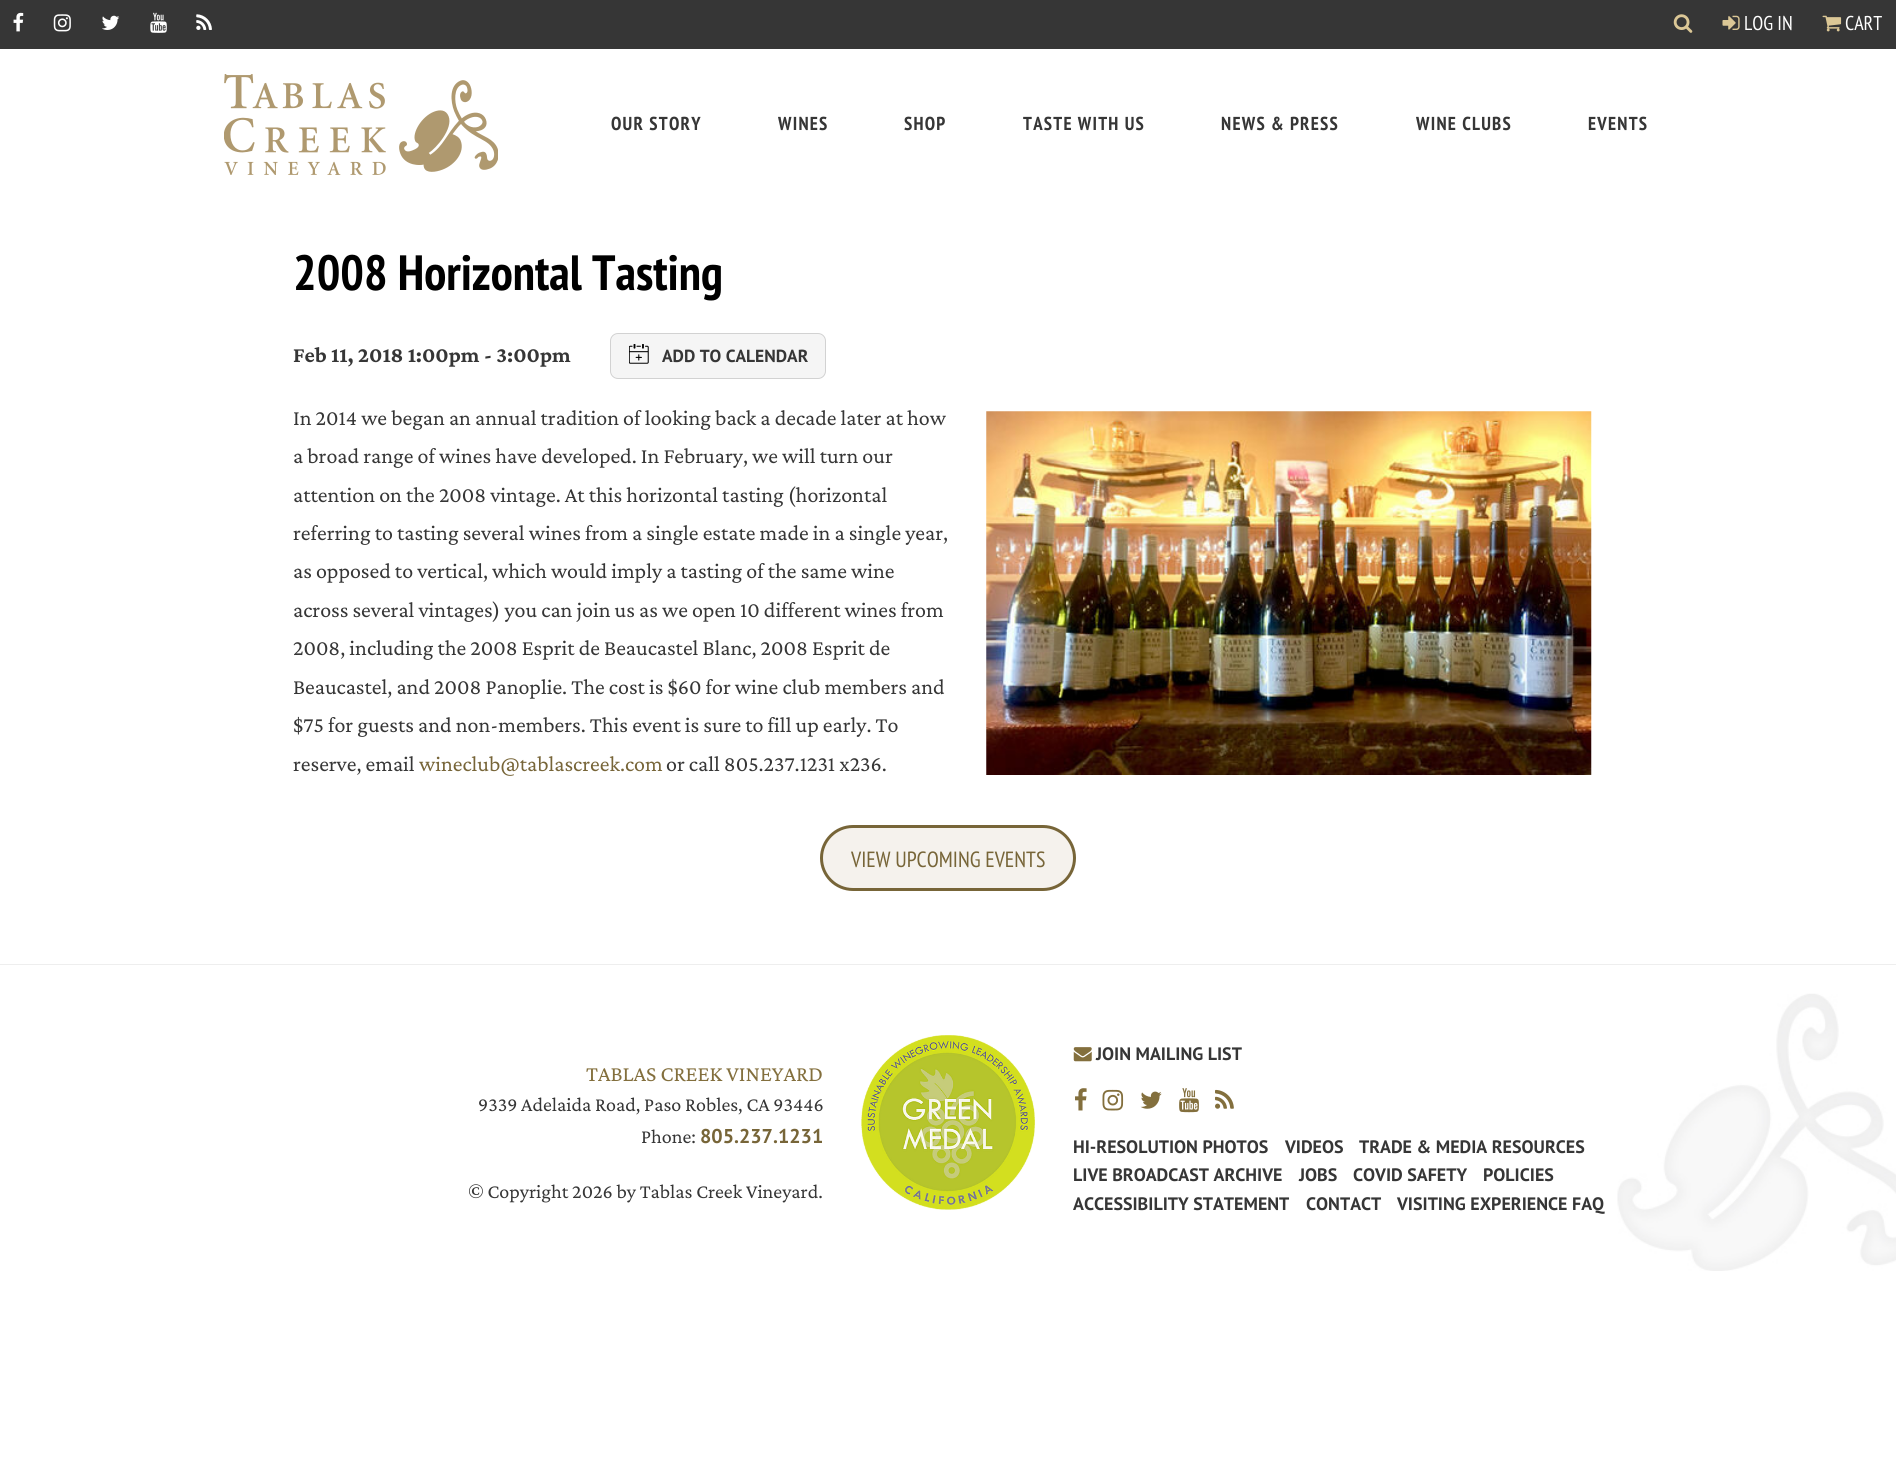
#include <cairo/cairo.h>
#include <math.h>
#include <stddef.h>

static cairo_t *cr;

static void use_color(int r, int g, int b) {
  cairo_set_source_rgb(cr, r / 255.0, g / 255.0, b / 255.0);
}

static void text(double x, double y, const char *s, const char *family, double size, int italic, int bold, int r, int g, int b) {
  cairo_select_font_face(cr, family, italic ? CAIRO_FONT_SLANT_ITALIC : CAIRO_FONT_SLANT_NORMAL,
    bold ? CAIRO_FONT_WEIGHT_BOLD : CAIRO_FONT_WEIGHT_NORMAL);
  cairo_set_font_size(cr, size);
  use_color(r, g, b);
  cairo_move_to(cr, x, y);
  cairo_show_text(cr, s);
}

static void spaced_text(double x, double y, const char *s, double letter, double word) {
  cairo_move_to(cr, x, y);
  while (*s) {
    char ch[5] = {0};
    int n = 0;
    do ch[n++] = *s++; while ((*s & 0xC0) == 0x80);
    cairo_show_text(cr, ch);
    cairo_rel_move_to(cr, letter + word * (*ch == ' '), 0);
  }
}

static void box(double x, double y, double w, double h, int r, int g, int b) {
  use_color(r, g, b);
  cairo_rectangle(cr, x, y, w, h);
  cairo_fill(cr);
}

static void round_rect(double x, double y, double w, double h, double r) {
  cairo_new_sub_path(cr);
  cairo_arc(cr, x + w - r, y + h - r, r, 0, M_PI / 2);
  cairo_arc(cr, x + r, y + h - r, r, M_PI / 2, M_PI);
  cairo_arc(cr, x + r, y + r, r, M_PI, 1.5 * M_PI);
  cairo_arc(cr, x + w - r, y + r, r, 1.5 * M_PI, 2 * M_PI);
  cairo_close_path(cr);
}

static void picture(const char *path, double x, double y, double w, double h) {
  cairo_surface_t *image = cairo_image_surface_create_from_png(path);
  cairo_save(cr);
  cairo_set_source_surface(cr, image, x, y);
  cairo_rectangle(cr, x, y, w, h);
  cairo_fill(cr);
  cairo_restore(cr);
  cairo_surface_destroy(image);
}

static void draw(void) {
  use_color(255, 255, 255);
  cairo_paint(cr);
  box(0, 0, 1896, 49, 54, 54, 54);
  picture("img_01.png", 13, 12, 11, 20);
  picture("img_02.png", 53, 14, 18, 18);
  picture("img_03.png", 102, 15, 18, 15);
  picture("img_04.png", 150, 12, 17, 21);
  picture("img_05.png", 196, 14, 16, 16);
  picture("img_06.png", 1673, 14, 20, 19);
  picture("img_07.png", 1722, 15, 18, 15);
  picture("img_08.png", 1822, 15, 20, 17);
  picture("img_09.png", 224, 74, 274, 101);
  use_color(245, 245, 245);
  round_rect(610.5, 333.5, 215, 45, 7.5);
  cairo_fill_preserve(cr);
  use_color(210, 210, 210);
  cairo_set_line_width(cr, 1);
  cairo_stroke(cr);
  picture("img_10.png", 629, 344, 20, 20);
  picture("img_11.png", 986, 411, 606, 364);
  use_color(245, 242, 237);
  round_rect(821.5, 826.5, 253, 63, 31.5);
  cairo_fill_preserve(cr);
  use_color(119, 101, 56);
  cairo_set_line_width(cr, 3);
  cairo_stroke(cr);
  picture("img_12.png", 1617, 993, 279, 278);
  box(0, 964, 1896, 1, 238, 238, 238);
  picture("img_13.png", 861, 1035, 174, 175);
  picture("img_14.png", 1073, 1047, 19, 15);
  picture("img_15.png", 1075, 1088, 12, 23);
  picture("img_16.png", 1102, 1089, 22, 22);
  picture("img_17.png", 1140, 1091, 22, 18);
  picture("img_18.png", 1179, 1088, 20, 25);
  picture("img_19.png", 1215, 1089, 19, 20);
  text(1744, 30, "LOG IN", "PT Sans Narrow", 20, 0, 0, 255, 255, 255);
  text(1845, 30, "CART", "PT Sans Narrow", 20, 0, 0, 255, 255, 255);
  cairo_select_font_face(cr, "PT Sans Narrow", CAIRO_FONT_SLANT_NORMAL, CAIRO_FONT_WEIGHT_BOLD);
  cairo_set_font_size(cr, 18.75);
  use_color(54, 54, 54);
  spaced_text(611, 130, "OUR STORY", 1.25, 0);
  spaced_text(778, 130, "WINES", 1.25, 0);
  spaced_text(904, 130, "SHOP", 1.25, 0);
  spaced_text(1023, 130, "TASTE WITH US", 1.25, 0);
  spaced_text(1221, 130, "NEWS & PRESS", 1.25, 0);
  spaced_text(1416, 130, "WINE CLUBS", 1.25, 0);
  spaced_text(1588, 130, "EVENTS", 1.25, 0);
  text(293, 290, "2008 Horizontal Tasting", "PT Sans Narrow", 49.5, 0, 1, 0, 0, 0);
  text(293, 362, "Feb 11, 2018 1:00pm - 3:00pm", "Crimson Pro", 22, 0, 1, 54, 54, 54);
  text(662, 362, "ADD TO CALENDAR", "PT Sans", 17.5, 0, 1, 54, 54, 54);
  text(293, 425, "In 2014 we began an annual tradition of looking back a decade later at how", "Crimson Pro", 22, 0, 0, 54, 54, 54);
  text(293, 463, "a broad range of wines have developed. In February, we will turn our", "Crimson Pro", 22, 0, 0, 54, 54, 54);
  text(293, 502, "attention on the 2008 vintage. At this horizontal tasting (horizontal", "Crimson Pro", 22, 0, 0, 54, 54, 54);
  text(293, 540, "referring to tasting several wines from a single estate made in a single year,", "Crimson Pro", 22, 0, 0, 54, 54, 54);
  text(293, 578, "as opposed to vertical, which would imply a tasting of the same wine", "Crimson Pro", 22, 0, 0, 54, 54, 54);
  text(293, 617, "across several vintages) you can join us as we open 10 different wines from", "Crimson Pro", 22, 0, 0, 54, 54, 54);
  text(293, 655, "2008, including the 2008 Esprit de Beaucastel Blanc, 2008 Esprit de", "Crimson Pro", 22, 0, 0, 54, 54, 54);
  text(293, 694, "Beaucastel, and 2008 Panoplie. The cost is $60 for wine club members and", "Crimson Pro", 22, 0, 0, 54, 54, 54);
  text(293, 732, "$75 for guests and non-members. This event is sure to fill up early. To", "Crimson Pro", 22, 0, 0, 54, 54, 54);
  text(293, 771, "reserve, email", "Crimson Pro", 22, 0, 0, 54, 54, 54);
  text(419, 771, "wineclub@tablascreek.com", "Crimson Pro", 22, 0, 0, 119, 101, 56);
  text(666, 771, "or call 805.237.1231 x236.", "Crimson Pro", 22, 0, 0, 54, 54, 54);
  text(851, 867, "VIEW UPCOMING EVENTS", "PT Sans Narrow", 22, 0, 0, 119, 101, 56);
  text(586, 1081, "TABLAS CREEK VINEYARD", "Crimson Pro", 22, 0, 0, 131, 111, 61);
  text(478, 1111, "9339 Adelaida Road, Paso Robles, CA 93446", "Crimson Pro", 20, 0, 0, 54, 54, 54);
  text(641, 1143, "Phone:", "Crimson Pro", 20, 0, 0, 54, 54, 54);
  text(700, 1143, "805.237.1231", "PT Sans", 20, 0, 1, 119, 101, 56);
  text(468, 1198, "© Copyright 2026 by Tablas Creek Vineyard.", "Crimson Pro", 20, 0, 0, 54, 54, 54);
  text(1096, 1060, "JOIN MAILING LIST", "PT Sans", 18, 0, 1, 54, 54, 54);
  text(1073, 1153, "HI-RESOLUTION PHOTOS", "PT Sans", 18, 0, 1, 54, 54, 54);
  text(1285, 1153, "VIDEOS", "PT Sans", 18, 0, 1, 54, 54, 54);
  text(1359, 1153, "TRADE & MEDIA RESOURCES", "PT Sans", 18, 0, 1, 54, 54, 54);
  text(1073, 1181, "LIVE BROADCAST ARCHIVE", "PT Sans", 18, 0, 1, 54, 54, 54);
  text(1299, 1181, "JOBS", "PT Sans", 18, 0, 1, 54, 54, 54);
  text(1353, 1181, "COVID SAFETY", "PT Sans", 18, 0, 1, 54, 54, 54);
  text(1483, 1181, "POLICIES", "PT Sans", 18, 0, 1, 54, 54, 54);
  text(1073, 1210, "ACCESSIBILITY STATEMENT", "PT Sans", 18, 0, 1, 54, 54, 54);
  text(1306, 1210, "CONTACT", "PT Sans", 18, 0, 1, 54, 54, 54);
  text(1397, 1210, "VISITING EXPERIENCE FAQ", "PT Sans", 18, 0, 1, 54, 54, 54);
}

int main(void) {
  cairo_surface_t *surface = cairo_image_surface_create(CAIRO_FORMAT_RGB24, 1896, 1478);
  cr = cairo_create(surface);
  cairo_font_options_t *options = cairo_font_options_create();
  cairo_font_options_set_hint_metrics(options, CAIRO_HINT_METRICS_OFF);
  cairo_font_options_set_hint_style(options, CAIRO_HINT_STYLE_NONE);
  cairo_set_font_options(cr, options);
  cairo_set_miter_limit(cr, 4);
  draw();
  cairo_surface_write_to_png(surface, "out.png");
  cairo_font_options_destroy(options);
  cairo_destroy(cr);
  cairo_surface_destroy(surface);
  return 0;
}
